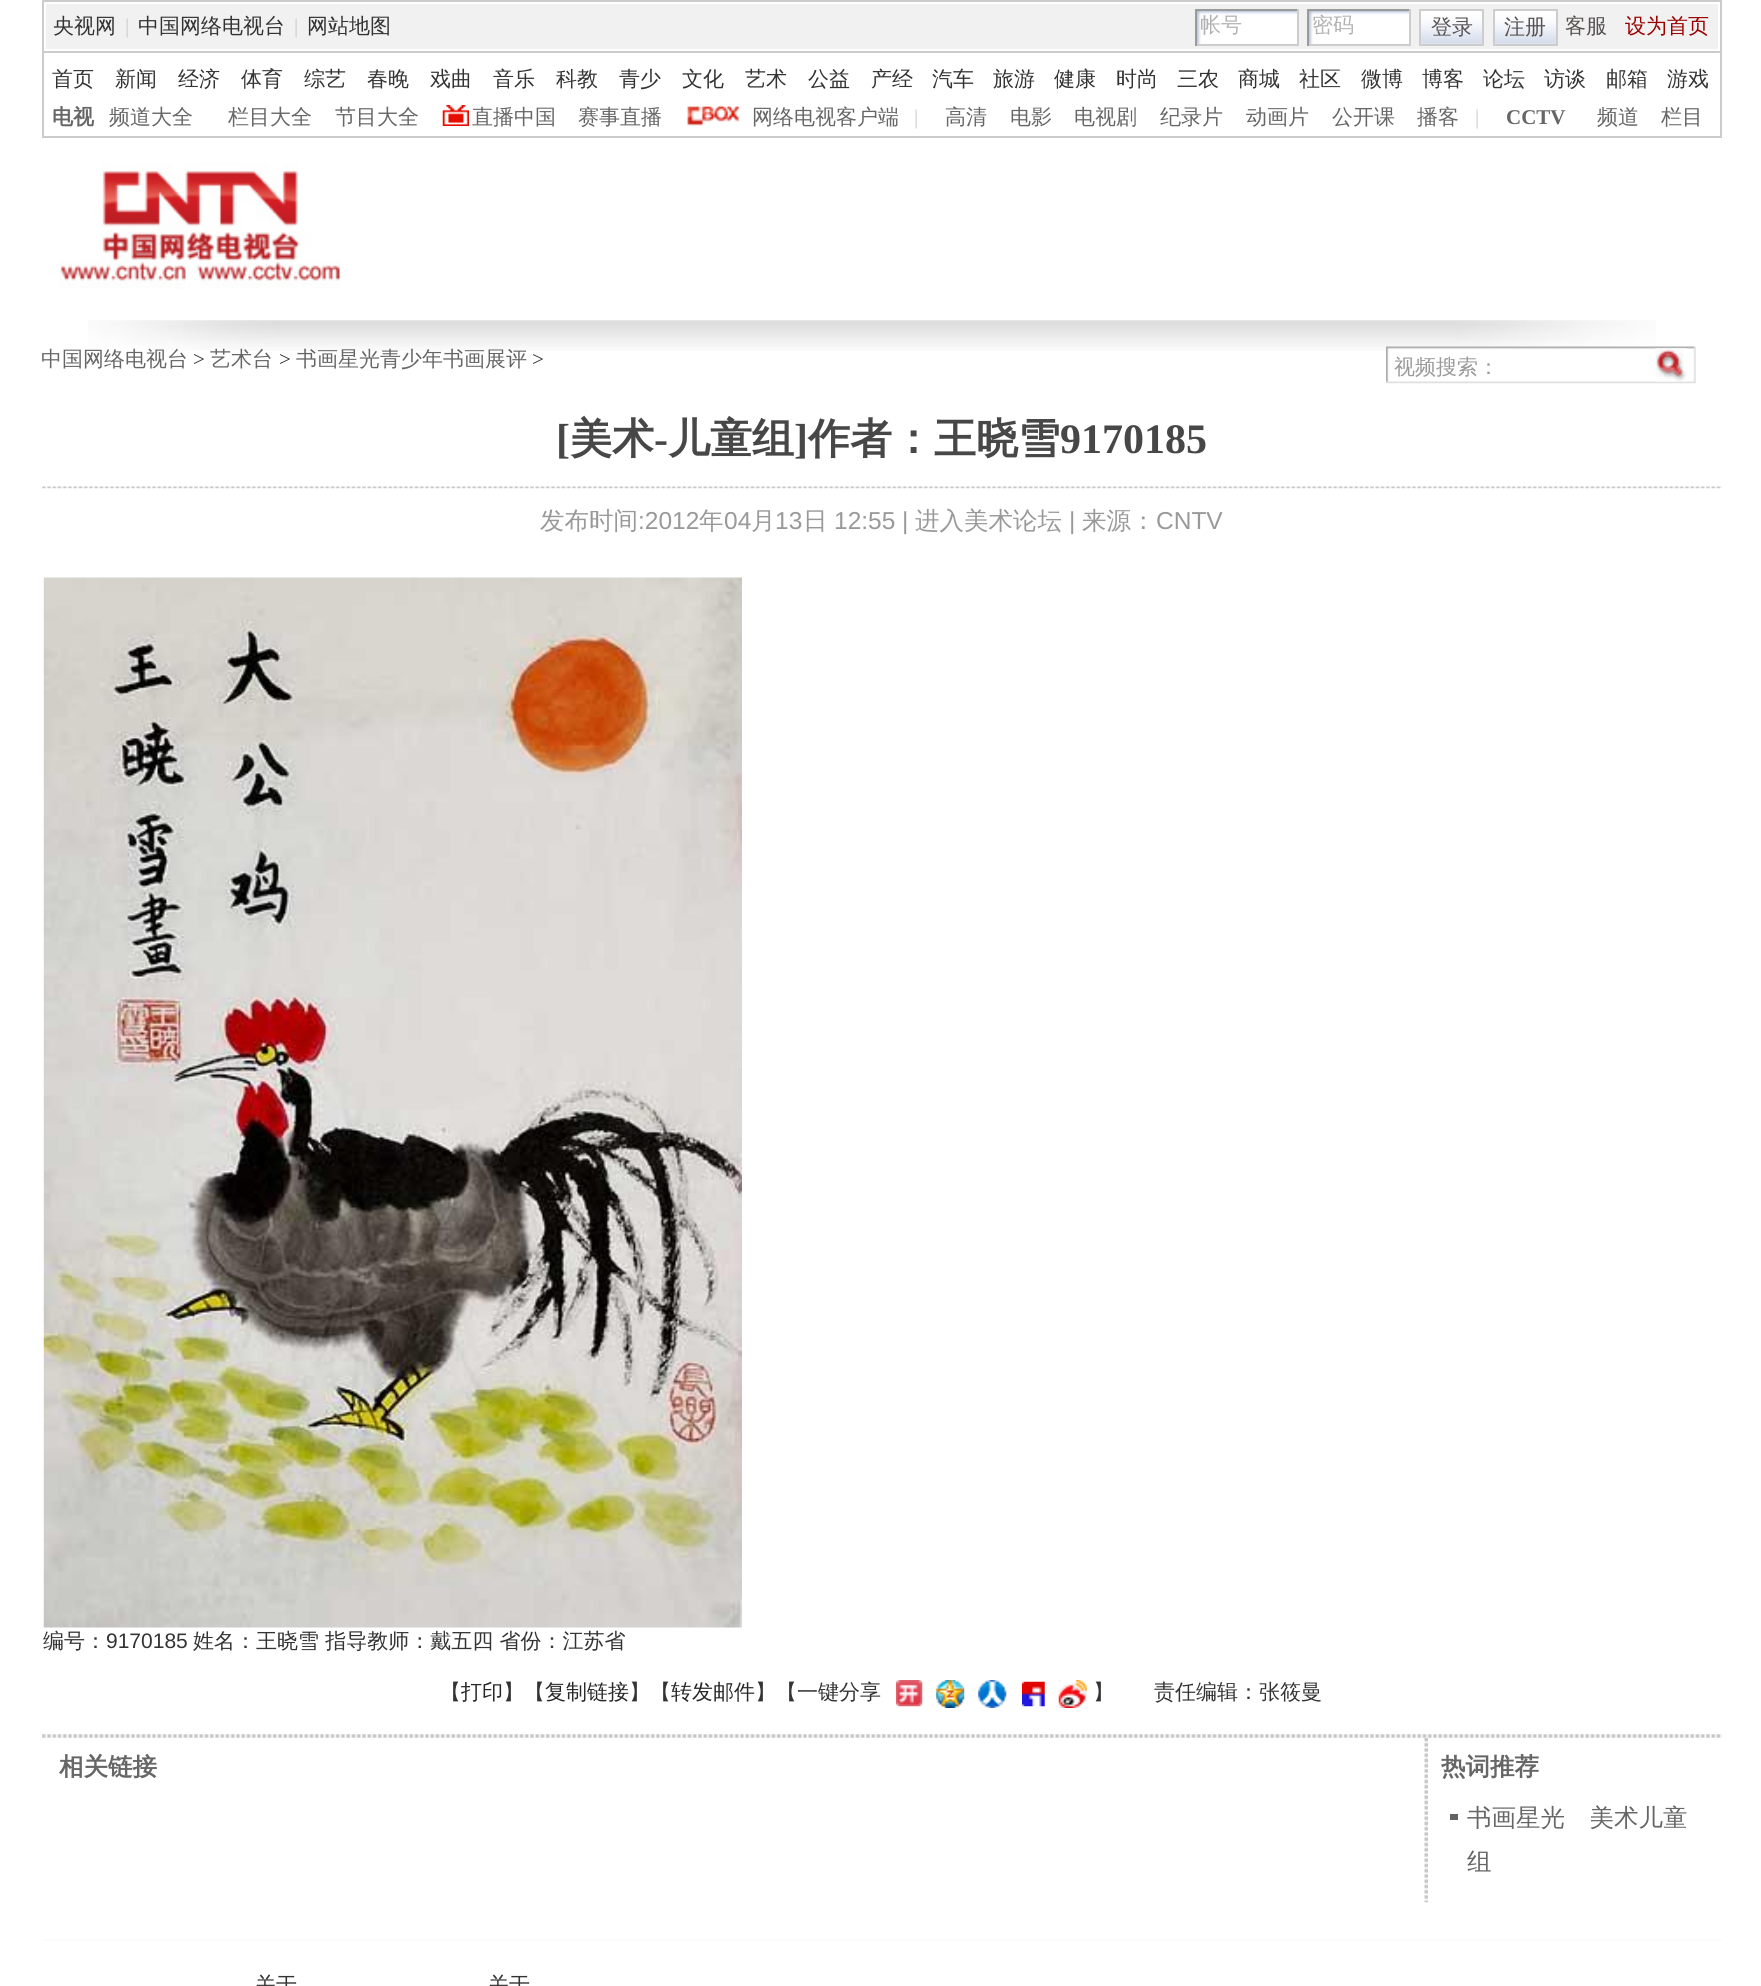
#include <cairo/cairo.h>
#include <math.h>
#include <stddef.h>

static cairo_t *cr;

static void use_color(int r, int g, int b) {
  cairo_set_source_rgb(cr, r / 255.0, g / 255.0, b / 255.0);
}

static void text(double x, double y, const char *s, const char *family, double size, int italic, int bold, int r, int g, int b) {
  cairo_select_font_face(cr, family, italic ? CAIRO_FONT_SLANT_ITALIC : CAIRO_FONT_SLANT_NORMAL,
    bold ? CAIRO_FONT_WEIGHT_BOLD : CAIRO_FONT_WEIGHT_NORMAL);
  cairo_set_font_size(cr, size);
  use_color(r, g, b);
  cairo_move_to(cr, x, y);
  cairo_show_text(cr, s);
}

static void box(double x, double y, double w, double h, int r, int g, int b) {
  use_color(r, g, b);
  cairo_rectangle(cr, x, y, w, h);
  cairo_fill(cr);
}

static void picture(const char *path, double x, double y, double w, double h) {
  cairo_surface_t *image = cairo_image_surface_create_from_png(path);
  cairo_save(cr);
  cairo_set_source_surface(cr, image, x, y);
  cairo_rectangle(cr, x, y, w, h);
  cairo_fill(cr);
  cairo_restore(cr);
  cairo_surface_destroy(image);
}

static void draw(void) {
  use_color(255, 255, 255);
  cairo_paint(cr);
  cairo_rectangle(cr, 43, 1, 1678, 136);
  use_color(204, 204, 204);
  cairo_stroke(cr);
  box(46, 4, 1672, 45, 241, 241, 241);
  picture("img_01.png", 1197, 11, 100, 33);
  box(1195, 9, 104, 2, 154, 154, 154);
  box(1297, 9, 2, 37, 205, 205, 205);
  box(1195, 44, 104, 2, 205, 205, 205);
  box(1195, 9, 2, 37, 154, 154, 154);
  picture("img_02.png", 1309, 11, 100, 33);
  box(1307, 9, 104, 2, 154, 154, 154);
  box(1409, 9, 2, 37, 205, 205, 205);
  box(1307, 44, 104, 2, 205, 205, 205);
  box(1307, 9, 2, 37, 154, 154, 154);
  picture("img_03.png", 1421, 11, 61, 33);
  cairo_rectangle(cr, 1420, 10, 63, 35);
  use_color(205, 205, 205);
  cairo_stroke(cr);
  picture("img_04.png", 1492, 10, 64, 34);
  cairo_rectangle(cr, 1494, 10, 63, 35);
  cairo_stroke(cr);
  box(44, 51, 1676, 2, 204, 204, 204);
  picture("img_05.png", 442, 105, 27, 21);
  picture("img_06.png", 686, 105, 55, 21);
  picture("img_07.png", 59, 163, 281, 126);
  picture("img_08.png", 88, 320, 1568, 31);
  picture("img_09.png", 1386, 346, 310, 38);
  picture("img_10.png", 1655, 348, 32, 34);
  picture("img_11.png", 42, 486, 1680, 3);
  picture("img_12.png", 43, 577, 699, 1051);
  picture("img_13.png", 896, 1680, 27, 27);
  picture("img_14.png", 936, 1680, 29, 28);
  picture("img_15.png", 978, 1680, 29, 28);
  picture("img_16.png", 1022, 1681, 23, 26);
  picture("img_17.png", 1058, 1680, 29, 28);
  picture("img_18.png", 42, 1734, 1680, 4);
  picture("img_19.png", 1424, 1737, 4, 166);
  box(1450, 1814, 8, 6, 98, 98, 98);
  box(42, 1939, 1680, 2, 252, 252, 253);
  text(53, 33, "央视网", "WenQuanYi Zen Hei Medium", 21, 0, 0, 51, 51, 51);
  text(125, 33, "|", "Liberation Serif", 21, 0, 0, 204, 204, 204);
  text(138, 33, "中国网络电视台", "WenQuanYi Zen Hei Medium", 21, 0, 0, 51, 51, 51);
  text(294, 33, "|", "Liberation Serif", 21, 0, 0, 204, 204, 204);
  text(307, 33, "网站地图", "WenQuanYi Zen Hei Medium", 21, 0, 0, 51, 51, 51);
  cairo_save(cr);
  cairo_rectangle(cr, 1201, 12, 94, 30);
  cairo_clip(cr);
  text(1200, 32, "帐号", "WenQuanYi Zen Hei Medium", 21, 0, 0, 178, 178, 178);
  cairo_restore(cr);
  text(1312, 32, "密码", "WenQuanYi Zen Hei Medium", 21, 0, 0, 178, 178, 178);
  text(1431, 34, "登录", "WenQuanYi Zen Hei Medium", 21, 0, 0, 88, 82, 82);
  text(1504, 34, "注册", "WenQuanYi Zen Hei Medium", 21, 0, 0, 88, 82, 82);
  text(1565, 33, "客服", "WenQuanYi Zen Hei Medium", 21, 0, 0, 88, 82, 82);
  text(1625, 33, "设为首页", "WenQuanYi Zen Hei Medium", 21, 0, 0, 153, 0, 0);
  text(52, 86, "首页", "WenQuanYi Zen Hei Medium", 21, 0, 0, 51, 51, 51);
  text(115, 86, "新闻", "WenQuanYi Zen Hei Medium", 21, 0, 0, 51, 51, 51);
  text(178, 86, "经济", "WenQuanYi Zen Hei Medium", 21, 0, 0, 51, 51, 51);
  text(241, 86, "体育", "WenQuanYi Zen Hei Medium", 21, 0, 0, 51, 51, 51);
  text(304, 86, "综艺", "WenQuanYi Zen Hei Medium", 21, 0, 0, 51, 51, 51);
  text(367, 86, "春晚", "WenQuanYi Zen Hei Medium", 21, 0, 0, 51, 51, 51);
  text(430, 86, "戏曲", "WenQuanYi Zen Hei Medium", 21, 0, 0, 51, 51, 51);
  text(493, 86, "音乐", "WenQuanYi Zen Hei Medium", 21, 0, 0, 51, 51, 51);
  text(556, 86, "科教", "WenQuanYi Zen Hei Medium", 21, 0, 0, 51, 51, 51);
  text(619, 86, "青少", "WenQuanYi Zen Hei Medium", 21, 0, 0, 51, 51, 51);
  text(682, 86, "文化", "WenQuanYi Zen Hei Medium", 21, 0, 0, 51, 51, 51);
  text(745, 86, "艺术", "WenQuanYi Zen Hei Medium", 21, 0, 0, 51, 51, 51);
  text(808, 86, "公益", "WenQuanYi Zen Hei Medium", 21, 0, 0, 51, 51, 51);
  text(871, 86, "产经", "WenQuanYi Zen Hei Medium", 21, 0, 0, 51, 51, 51);
  text(932, 86, "汽车", "WenQuanYi Zen Hei Medium", 21, 0, 0, 51, 51, 51);
  text(993, 86, "旅游", "WenQuanYi Zen Hei Medium", 21, 0, 0, 51, 51, 51);
  text(1054, 86, "健康", "WenQuanYi Zen Hei Medium", 21, 0, 0, 51, 51, 51);
  text(1116, 86, "时尚", "WenQuanYi Zen Hei Medium", 21, 0, 0, 51, 51, 51);
  text(1177, 86, "三农", "WenQuanYi Zen Hei Medium", 21, 0, 0, 51, 51, 51);
  text(1238, 86, "商城", "WenQuanYi Zen Hei Medium", 21, 0, 0, 51, 51, 51);
  text(1299, 86, "社区", "WenQuanYi Zen Hei Medium", 21, 0, 0, 51, 51, 51);
  text(1361, 86, "微博", "WenQuanYi Zen Hei Medium", 21, 0, 0, 51, 51, 51);
  text(1422, 86, "博客", "WenQuanYi Zen Hei Medium", 21, 0, 0, 51, 51, 51);
  text(1483, 86, "论坛", "WenQuanYi Zen Hei Medium", 21, 0, 0, 51, 51, 51);
  text(1544, 86, "访谈", "WenQuanYi Zen Hei Medium", 21, 0, 0, 51, 51, 51);
  text(1606, 86, "邮箱", "WenQuanYi Zen Hei Medium", 21, 0, 0, 51, 51, 51);
  text(1667, 86, "游戏", "WenQuanYi Zen Hei Medium", 21, 0, 0, 51, 51, 51);
  text(52, 124, "电视", "WenQuanYi Zen Hei", 21, 0, 1, 102, 102, 102);
  text(109, 124, "频道大全", "WenQuanYi Zen Hei Medium", 21, 0, 0, 102, 102, 102);
  text(228, 124, "栏目大全", "WenQuanYi Zen Hei Medium", 21, 0, 0, 102, 102, 102);
  text(335, 124, "节目大全", "WenQuanYi Zen Hei Medium", 21, 0, 0, 102, 102, 102);
  text(472, 124, "直播中国", "WenQuanYi Zen Hei Medium", 21, 0, 0, 102, 102, 102);
  text(578, 124, "赛事直播", "WenQuanYi Zen Hei Medium", 21, 0, 0, 102, 102, 102);
  text(752, 124, "网络电视客户端", "WenQuanYi Zen Hei Medium", 21, 0, 0, 102, 102, 102);
  text(914, 124, "|", "Liberation Serif", 21, 0, 0, 204, 204, 204);
  text(945, 124, "高清", "WenQuanYi Zen Hei Medium", 21, 0, 0, 102, 102, 102);
  text(1010, 124, "电影", "WenQuanYi Zen Hei Medium", 21, 0, 0, 102, 102, 102);
  text(1074, 124, "电视剧", "WenQuanYi Zen Hei Medium", 21, 0, 0, 102, 102, 102);
  text(1160, 124, "纪录片", "WenQuanYi Zen Hei Medium", 21, 0, 0, 102, 102, 102);
  text(1246, 124, "动画片", "WenQuanYi Zen Hei Medium", 21, 0, 0, 102, 102, 102);
  text(1332, 124, "公开课", "WenQuanYi Zen Hei Medium", 21, 0, 0, 102, 102, 102);
  text(1417, 124, "播客", "WenQuanYi Zen Hei Medium", 21, 0, 0, 102, 102, 102);
  text(1475, 124, "|", "Liberation Serif", 21, 0, 0, 204, 204, 204);
  text(1506, 124, "CCTV", "Liberation Serif", 21, 0, 1, 102, 102, 102);
  text(1597, 124, "频道", "WenQuanYi Zen Hei Medium", 21, 0, 0, 102, 102, 102);
  text(1661, 124, "栏目", "WenQuanYi Zen Hei Medium", 21, 0, 0, 102, 102, 102);
  text(41, 366, "中国网络电视台", "WenQuanYi Zen Hei Medium", 21, 0, 0, 102, 102, 102);
  text(193, 366, ">", "Liberation Serif", 21, 0, 0, 51, 51, 51);
  text(210, 366, "艺术台", "WenQuanYi Zen Hei Medium", 21, 0, 0, 102, 102, 102);
  text(279, 366, ">", "Liberation Serif", 21, 0, 0, 51, 51, 51);
  text(296, 366, "书画星光青少年书画展评", "WenQuanYi Zen Hei Medium", 21, 0, 0, 102, 102, 102);
  text(532, 366, ">", "Liberation Serif", 21, 0, 0, 51, 51, 51);
  text(1394, 374, "视频搜索：", "WenQuanYi Zen Hei Medium", 21, 0, 0, 153, 153, 153);
  text(556, 453, "[", "Liberation Serif", 42, 0, 1, 71, 71, 71);
  text(570, 453, "美术", "WenQuanYi Zen Hei", 42, 0, 1, 71, 71, 71);
  text(654, 453, "-", "Liberation Serif", 42, 0, 1, 71, 71, 71);
  text(668, 453, "儿童组", "WenQuanYi Zen Hei", 42, 0, 1, 71, 71, 71);
  text(794, 453, "]", "Liberation Serif", 42, 0, 1, 71, 71, 71);
  text(808, 453, "作者：王晓雪", "WenQuanYi Zen Hei", 42, 0, 1, 71, 71, 71);
  text(1060, 453, "9170185", "Liberation Serif", 42, 0, 1, 71, 71, 71);
  text(540, 529, "发布时间", "WenQuanYi Zen Hei Medium", 24.5, 0, 0, 153, 153, 153);
  text(638, 529, ":2012", "Liberation Sans", 24.5, 0, 0, 153, 153, 153);
  text(699, 529, "年", "WenQuanYi Zen Hei Medium", 24.5, 0, 0, 153, 153, 153);
  text(724, 529, "04", "Liberation Sans", 24.5, 0, 0, 153, 153, 153);
  text(751, 529, "月", "WenQuanYi Zen Hei Medium", 24.5, 0, 0, 153, 153, 153);
  text(775, 529, "13", "Liberation Sans", 24.5, 0, 0, 153, 153, 153);
  text(803, 529, "日", "WenQuanYi Zen Hei Medium", 24.5, 0, 0, 153, 153, 153);
  text(834, 529, "12:55 |", "Liberation Sans", 24.5, 0, 0, 153, 153, 153);
  text(915, 529, "进入美术论坛", "WenQuanYi Zen Hei Medium", 24.5, 0, 0, 153, 153, 153);
  text(1069, 529, "|", "Liberation Sans", 24.5, 0, 0, 153, 153, 153);
  text(1082, 529, "来源：", "WenQuanYi Zen Hei Medium", 24.5, 0, 0, 153, 153, 153);
  text(1156, 529, "CNTV", "Liberation Sans", 24.5, 0, 0, 153, 153, 153);
  text(43, 1648, "编号：", "WenQuanYi Zen Hei Medium", 21, 0, 0, 51, 51, 51);
  text(106, 1648, "9170185", "Liberation Sans", 21, 0, 0, 51, 51, 51);
  text(193, 1648, "姓名：王晓雪 指导教师：戴五四 省份：江苏省", "WenQuanYi Zen Hei Medium", 21, 0, 0, 51, 51, 51);
  text(440, 1699, "【", "WenQuanYi Zen Hei Medium", 21, 0, 0, 51, 51, 51);
  text(461, 1699, "打印", "WenQuanYi Zen Hei Medium", 21, 0, 0, 39, 39, 39);
  text(503, 1699, "】【", "WenQuanYi Zen Hei Medium", 21, 0, 0, 51, 51, 51);
  text(545, 1699, "复制链接", "WenQuanYi Zen Hei Medium", 21, 0, 0, 39, 39, 39);
  text(629, 1699, "】【", "WenQuanYi Zen Hei Medium", 21, 0, 0, 51, 51, 51);
  text(671, 1699, "转发邮件", "WenQuanYi Zen Hei Medium", 21, 0, 0, 39, 39, 39);
  text(755, 1699, "】【一键分享", "WenQuanYi Zen Hei Medium", 21, 0, 0, 51, 51, 51);
  text(1093, 1699, "】", "WenQuanYi Zen Hei Medium", 21, 0, 0, 51, 51, 51);
  text(1154, 1699, "责任编辑：张筱曼", "WenQuanYi Zen Hei Medium", 21, 0, 0, 51, 51, 51);
  text(59, 1775, "相关链接", "WenQuanYi Zen Hei", 24.5, 0, 1, 102, 102, 102);
  text(1441, 1775, "热词推荐", "WenQuanYi Zen Hei", 24.5, 0, 1, 102, 102, 102);
  text(1467, 1826, "书画星光　美术儿童", "WenQuanYi Zen Hei Medium", 24.5, 0, 0, 102, 102, 102);
  text(1467, 1870, "组", "WenQuanYi Zen Hei Medium", 24.5, 0, 0, 102, 102, 102);
  text(255, 1992, "关于", "WenQuanYi Zen Hei Medium", 21, 0, 0, 51, 51, 51);
  text(488, 1992, "关于", "WenQuanYi Zen Hei Medium", 21, 0, 0, 51, 51, 51);
}

int main(void) {
  cairo_surface_t *surface = cairo_image_surface_create(CAIRO_FORMAT_RGB24, 1761, 1986);
  cr = cairo_create(surface);
  cairo_font_options_t *options = cairo_font_options_create();
  cairo_font_options_set_hint_metrics(options, CAIRO_HINT_METRICS_OFF);
  cairo_font_options_set_hint_style(options, CAIRO_HINT_STYLE_NONE);
  cairo_set_font_options(cr, options);
  cairo_set_miter_limit(cr, 4);
  draw();
  cairo_surface_write_to_png(surface, "out.png");
  cairo_font_options_destroy(options);
  cairo_destroy(cr);
  cairo_surface_destroy(surface);
  return 0;
}
